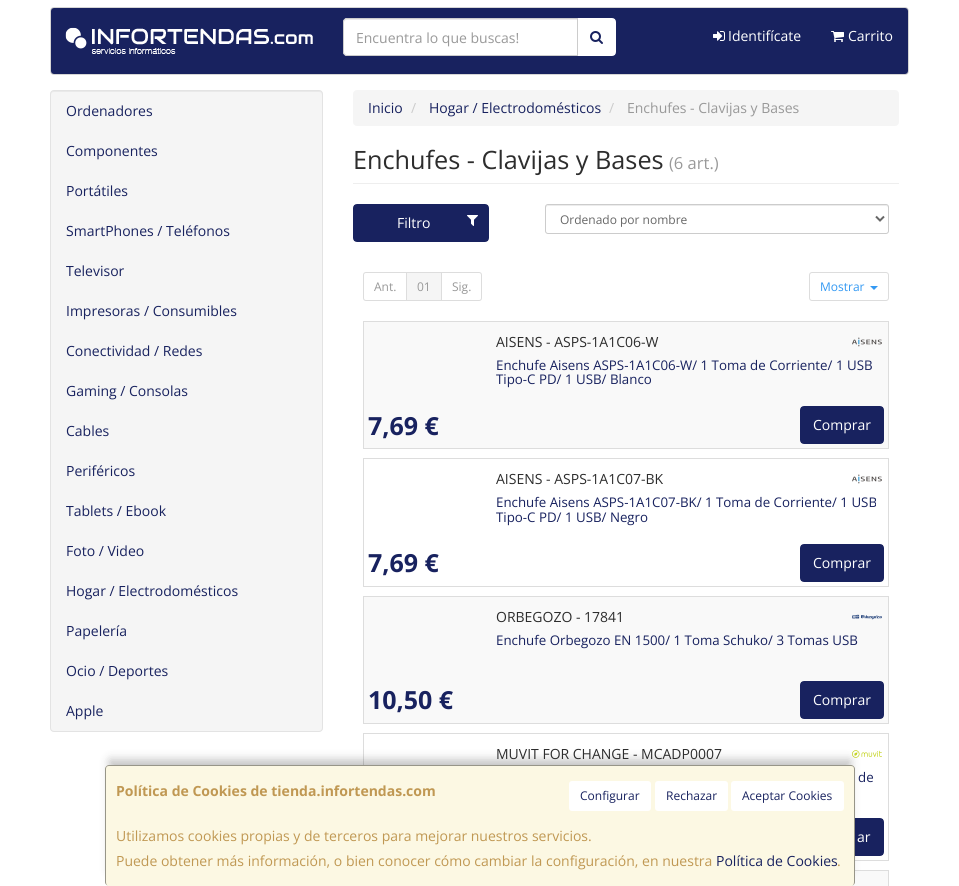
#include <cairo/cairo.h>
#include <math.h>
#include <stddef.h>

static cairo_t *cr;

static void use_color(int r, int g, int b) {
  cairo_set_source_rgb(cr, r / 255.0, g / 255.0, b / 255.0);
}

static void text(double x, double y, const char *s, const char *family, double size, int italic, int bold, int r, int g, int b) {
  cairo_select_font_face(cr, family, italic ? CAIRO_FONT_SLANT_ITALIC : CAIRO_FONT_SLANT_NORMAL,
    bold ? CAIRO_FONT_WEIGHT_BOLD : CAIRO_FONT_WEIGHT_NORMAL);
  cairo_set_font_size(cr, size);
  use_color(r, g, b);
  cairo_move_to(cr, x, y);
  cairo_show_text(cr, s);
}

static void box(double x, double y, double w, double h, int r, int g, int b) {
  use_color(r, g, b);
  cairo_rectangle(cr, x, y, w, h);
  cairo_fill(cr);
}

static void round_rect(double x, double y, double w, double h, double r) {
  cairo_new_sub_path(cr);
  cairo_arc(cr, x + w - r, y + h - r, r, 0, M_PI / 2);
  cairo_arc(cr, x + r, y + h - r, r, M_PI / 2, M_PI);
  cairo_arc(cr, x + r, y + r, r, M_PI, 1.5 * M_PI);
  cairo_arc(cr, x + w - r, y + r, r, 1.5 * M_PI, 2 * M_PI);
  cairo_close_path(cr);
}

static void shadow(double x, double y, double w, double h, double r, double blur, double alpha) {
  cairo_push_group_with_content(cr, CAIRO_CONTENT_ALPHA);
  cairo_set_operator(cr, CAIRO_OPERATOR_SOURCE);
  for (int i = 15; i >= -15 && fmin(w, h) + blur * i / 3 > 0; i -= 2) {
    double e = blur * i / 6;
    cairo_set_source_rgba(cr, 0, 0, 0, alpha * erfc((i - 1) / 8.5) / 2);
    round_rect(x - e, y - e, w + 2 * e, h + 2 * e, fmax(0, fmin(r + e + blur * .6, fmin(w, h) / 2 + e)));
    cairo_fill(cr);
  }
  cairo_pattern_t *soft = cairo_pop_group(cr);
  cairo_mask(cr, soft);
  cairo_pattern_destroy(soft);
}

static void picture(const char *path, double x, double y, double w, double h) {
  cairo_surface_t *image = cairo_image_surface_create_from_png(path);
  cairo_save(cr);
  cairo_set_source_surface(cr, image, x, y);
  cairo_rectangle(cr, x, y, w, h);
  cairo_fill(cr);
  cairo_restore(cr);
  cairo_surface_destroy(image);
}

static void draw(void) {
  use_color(255, 255, 255);
  cairo_paint(cr);
  cairo_save(cr);
  round_rect(50, 7, 859, 68, 4);
  cairo_clip(cr);
  box(51, 8, 857, 66, 24, 34, 95);
  cairo_restore(cr);
  round_rect(50.5, 7.5, 858, 67, 3.5);
  use_color(213, 213, 213);
  cairo_set_line_width(cr, 1);
  cairo_stroke(cr);
  picture("img_01.png", 65, 27, 248, 27);
  box(578, 19, 37, 36, 255, 255, 255);
  cairo_new_path(cr);
  cairo_move_to(cr, 577.5, 18.5);
  cairo_line_to(cr, 612, 18.5);
  cairo_curve_to(cr, 614, 18.5, 615.5, 20, 615.5, 22);
  cairo_line_to(cr, 615.5, 52);
  cairo_curve_to(cr, 615.5, 54, 614, 55.5, 612, 55.5);
  cairo_line_to(cr, 577.5, 55.5);
  cairo_close_path(cr);
  cairo_stroke(cr);
  cairo_new_path(cr);
  cairo_move_to(cr, 347, 18);
  cairo_line_to(cr, 578, 18);
  cairo_line_to(cr, 578, 56);
  cairo_line_to(cr, 347, 56);
  cairo_curve_to(cr, 345, 56, 343, 54, 343, 52);
  cairo_line_to(cr, 343, 22);
  cairo_curve_to(cr, 343, 20, 345, 18, 347, 18);
  cairo_close_path(cr);
  cairo_fill(cr);
  use_color(236, 236, 236);
  cairo_new_path(cr);
  cairo_move_to(cr, 347, 20);
  cairo_line_to(cr, 577, 20);
  cairo_line_to(cr, 577, 19);
  cairo_line_to(cr, 347, 19);
  cairo_curve_to(cr, 345, 19, 344, 21, 344, 23);
  cairo_curve_to(cr, 344, 21, 345, 20, 347, 20);
  cairo_close_path(cr);
  cairo_fill(cr);
  cairo_new_path(cr);
  cairo_move_to(cr, 347, 18.5);
  cairo_line_to(cr, 577.5, 18.5);
  cairo_line_to(cr, 577.5, 55.5);
  cairo_line_to(cr, 347, 55.5);
  cairo_curve_to(cr, 345, 55.5, 343.5, 54, 343.5, 52);
  cairo_line_to(cr, 343.5, 22);
  cairo_curve_to(cr, 343.5, 20, 345, 18.5, 347, 18.5);
  cairo_close_path(cr);
  use_color(204, 204, 204);
  cairo_stroke(cr);
  picture("img_02.png", 590, 31, 13, 13);
  picture("img_03.png", 713, 31, 12, 10);
  picture("img_04.png", 831, 31, 13, 11);
  use_color(245, 245, 245);
  round_rect(50, 90, 273, 642, 4);
  cairo_fill(cr);
  use_color(233, 233, 233);
  cairo_new_path(cr);
  cairo_move_to(cr, 54, 92);
  cairo_line_to(cr, 319, 92);
  cairo_curve_to(cr, 321, 92, 322, 93, 322, 95);
  cairo_line_to(cr, 322, 94);
  cairo_curve_to(cr, 322, 92, 321, 91, 319, 91);
  cairo_line_to(cr, 54, 91);
  cairo_curve_to(cr, 52, 91, 51, 92, 51, 94);
  cairo_line_to(cr, 51, 95);
  cairo_curve_to(cr, 51, 93, 52, 92, 54, 92);
  cairo_close_path(cr);
  cairo_fill(cr);
  round_rect(50.5, 90.5, 272, 641, 3.5);
  use_color(227, 227, 227);
  cairo_stroke(cr);
  use_color(245, 245, 245);
  round_rect(353, 90, 546, 36, 4);
  cairo_fill(cr);
  box(353, 183, 546, 1, 238, 238, 238);
  cairo_save(cr);
  round_rect(353, 204, 136, 38, 4);
  cairo_clip(cr);
  box(354, 205, 134, 36, 24, 34, 95);
  cairo_restore(cr);
  round_rect(353.5, 204.5, 135, 37, 3.5);
  use_color(24, 34, 95);
  cairo_stroke(cr);
  picture("img_05.png", 467, 215, 11, 11);
  use_color(236, 236, 236);
  cairo_new_path(cr);
  cairo_move_to(cr, 548, 206);
  cairo_line_to(cr, 886, 206);
  cairo_curve_to(cr, 887, 206, 888, 207, 888, 208);
  cairo_curve_to(cr, 888, 207, 888, 205, 886, 205);
  cairo_line_to(cr, 548, 205);
  cairo_line_to(cr, 546, 206);
  cairo_line_to(cr, 546, 208);
  cairo_curve_to(cr, 546, 207, 547, 206, 548, 206);
  cairo_close_path(cr);
  cairo_fill(cr);
  round_rect(545.5, 204.5, 343, 29, 2.5);
  use_color(204, 204, 204);
  cairo_stroke(cr);
  cairo_new_path(cr);
  cairo_move_to(cr, 876, 216.5);
  cairo_line_to(cr, 880, 220.5);
  cairo_line_to(cr, 884, 216.5);
  use_color(102, 102, 102);
  cairo_set_line_width(cr, 2);
  cairo_stroke(cr);
  cairo_new_path(cr);
  cairo_move_to(cr, 366, 272.5);
  cairo_line_to(cr, 406.5, 272.5);
  cairo_line_to(cr, 406.5, 300.5);
  cairo_line_to(cr, 366, 300.5);
  cairo_curve_to(cr, 364.5, 300.5, 363.5, 299.5, 363.5, 298);
  cairo_line_to(cr, 363.5, 275);
  cairo_curve_to(cr, 363.5, 273.5, 364.5, 272.5, 366, 272.5);
  cairo_close_path(cr);
  use_color(221, 221, 221);
  cairo_set_line_width(cr, 1);
  cairo_stroke(cr);
  cairo_new_path(cr);
  cairo_move_to(cr, 441.5, 272.5);
  cairo_line_to(cr, 479, 272.5);
  cairo_curve_to(cr, 480.5, 272.5, 481.5, 273.5, 481.5, 275);
  cairo_line_to(cr, 481.5, 298);
  cairo_curve_to(cr, 481.5, 299.5, 480.5, 300.5, 479, 300.5);
  cairo_line_to(cr, 441.5, 300.5);
  cairo_close_path(cr);
  cairo_stroke(cr);
  use_color(245, 245, 245);
  cairo_rectangle(cr, 406.5, 272.5, 35, 28);
  cairo_fill_preserve(cr);
  use_color(221, 221, 221);
  cairo_stroke(cr);
  round_rect(809.5, 272.5, 79, 28, 2.5);
  cairo_stroke(cr);
  use_color(51, 153, 243);
  cairo_new_path(cr);
  cairo_move_to(cr, 870, 286);
  cairo_line_to(cr, 878, 286);
  cairo_line_to(cr, 874, 290);
  cairo_close_path(cr);
  cairo_fill(cr);
  use_color(249, 249, 249);
  cairo_new_path(cr);
  cairo_move_to(cr, 367, 321);
  cairo_line_to(cr, 885, 321);
  cairo_curve_to(cr, 887, 321, 889, 323, 889, 325);
  cairo_line_to(cr, 889, 449);
  cairo_line_to(cr, 363, 449);
  cairo_line_to(cr, 363, 325);
  cairo_curve_to(cr, 363, 323, 365, 321, 367, 321);
  cairo_close_path(cr);
  cairo_fill(cr);
  cairo_rectangle(cr, 363.5, 321.5, 525, 127);
  use_color(221, 221, 221);
  cairo_stroke(cr);
  cairo_save(cr);
  round_rect(800, 406, 84, 38, 4);
  cairo_clip(cr);
  box(801, 407, 82, 36, 24, 34, 95);
  cairo_restore(cr);
  round_rect(800.5, 406.5, 83, 37, 3.5);
  use_color(24, 34, 95);
  cairo_stroke(cr);
  picture("img_06.png", 852, 337, 30, 10);
  cairo_rectangle(cr, 363.5, 458.5, 525, 128);
  use_color(221, 221, 221);
  cairo_stroke(cr);
  cairo_save(cr);
  round_rect(800, 544, 84, 38, 4);
  cairo_clip(cr);
  box(801, 545, 82, 36, 24, 34, 95);
  cairo_restore(cr);
  round_rect(800.5, 544.5, 83, 37, 3.5);
  use_color(24, 34, 95);
  cairo_stroke(cr);
  picture("img_07.png", 852, 474, 30, 10);
  use_color(249, 249, 249);
  cairo_rectangle(cr, 363.5, 596.5, 525, 127);
  cairo_fill_preserve(cr);
  use_color(221, 221, 221);
  cairo_stroke(cr);
  cairo_save(cr);
  round_rect(800, 681, 84, 38, 4);
  cairo_clip(cr);
  box(801, 682, 82, 36, 24, 34, 95);
  cairo_restore(cr);
  round_rect(800.5, 681.5, 83, 37, 3.5);
  use_color(24, 34, 95);
  cairo_stroke(cr);
  picture("img_08.png", 852, 614, 30, 6);
  cairo_rectangle(cr, 363.5, 733.5, 525, 127);
  use_color(221, 221, 221);
  cairo_stroke(cr);
  box(855, 819, 28, 36, 24, 34, 95);
  round_rect(800.5, 818.5, 83, 37, 3.5);
  cairo_stroke(cr);
  picture("img_09.png", 852, 750, 30, 8);
  box(851, 871, 37, 15, 249, 249, 249);
  cairo_rectangle(cr, 363.5, 870.5, 525, 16);
  use_color(221, 221, 221);
  cairo_stroke(cr);
  use_color(0, 0, 0);
  shadow(110, 760, 740, 111, 0, 5, 0.25);
  use_color(252, 248, 227);
  round_rect(105, 765, 750, 121, 4);
  cairo_fill(cr);
  cairo_set_source_rgba(cr, 0, 0, 0, 0.4);
  cairo_set_fill_rule(cr, CAIRO_FILL_RULE_EVEN_ODD);
  cairo_new_path(cr);
  cairo_move_to(cr, 109, 765);
  cairo_line_to(cr, 851, 765);
  cairo_curve_to(cr, 853, 765, 855, 767, 855, 769);
  cairo_line_to(cr, 855, 882);
  cairo_curve_to(cr, 855, 884, 853, 886, 851, 886);
  cairo_line_to(cr, 109, 886);
  cairo_curve_to(cr, 107, 886, 105, 884, 105, 882);
  cairo_line_to(cr, 105, 769);
  cairo_curve_to(cr, 105, 767, 107, 765, 109, 765);
  cairo_close_path(cr);
  cairo_move_to(cr, 109, 766);
  cairo_line_to(cr, 851, 766);
  cairo_curve_to(cr, 853, 766, 854, 767, 854, 769);
  cairo_line_to(cr, 854, 882);
  cairo_curve_to(cr, 854, 884, 853, 886, 851, 886);
  cairo_line_to(cr, 109, 886);
  cairo_curve_to(cr, 107, 886, 106, 884, 106, 882);
  cairo_line_to(cr, 106, 769);
  cairo_curve_to(cr, 106, 767, 107, 766, 109, 766);
  cairo_close_path(cr);
  cairo_fill(cr);
  box(570, 782, 80, 28, 255, 255, 255);
  round_rect(569.5, 781.5, 81, 29, 2.5);
  cairo_stroke(cr);
  box(656, 782, 71, 28, 255, 255, 255);
  round_rect(655.5, 781.5, 72, 29, 2.5);
  cairo_stroke(cr);
  box(732, 782, 111, 28, 255, 255, 255);
  round_rect(731.5, 781.5, 112, 29, 2.5);
  cairo_stroke(cr);
  text(356, 43, "Encuentra lo que buscas!", "Open Sans", 14, 0, 0, 153, 153, 153);
  text(728, 41, "Identifícate", "Open Sans", 14, 0, 0, 255, 255, 255);
  text(848, 41, "Carrito", "Open Sans", 14, 0, 0, 255, 255, 255);
  text(66, 116, "Ordenadores", "Open Sans", 14, 0, 0, 24, 34, 95);
  text(66, 156, "Componentes", "Open Sans", 14, 0, 0, 24, 34, 95);
  text(66, 196, "Portátiles", "Open Sans", 14, 0, 0, 24, 34, 95);
  text(66, 236, "SmartPhones / Teléfonos", "Open Sans", 14, 0, 0, 24, 34, 95);
  text(66, 276, "Televisor", "Open Sans", 14, 0, 0, 24, 34, 95);
  text(66, 316, "Impresoras / Consumibles", "Open Sans", 14, 0, 0, 24, 34, 95);
  text(66, 356, "Conectividad / Redes", "Open Sans", 14, 0, 0, 24, 34, 95);
  text(66, 396, "Gaming / Consolas", "Open Sans", 14, 0, 0, 24, 34, 95);
  text(66, 436, "Cables", "Open Sans", 14, 0, 0, 24, 34, 95);
  text(66, 476, "Periféricos", "Open Sans", 14, 0, 0, 24, 34, 95);
  text(66, 516, "Tablets / Ebook", "Open Sans", 14, 0, 0, 24, 34, 95);
  text(66, 556, "Foto / Video", "Open Sans", 14, 0, 0, 24, 34, 95);
  text(66, 596, "Hogar / Electrodomésticos", "Open Sans", 14, 0, 0, 24, 34, 95);
  text(66, 636, "Papelería", "Open Sans", 14, 0, 0, 24, 34, 95);
  text(66, 676, "Ocio / Deportes", "Open Sans", 14, 0, 0, 24, 34, 95);
  text(66, 716, "Apple", "Open Sans", 14, 0, 0, 24, 34, 95);
  text(368, 113, "Inicio", "Open Sans", 14, 0, 0, 24, 34, 95);
  text(411, 113, "/", "Open Sans", 14, 0, 0, 204, 204, 204);
  text(429, 113, "Hogar / Electrodomésticos", "Open Sans", 14, 0, 0, 24, 34, 95);
  text(609, 113, "/", "Open Sans", 14, 0, 0, 204, 204, 204);
  text(627, 113, "Enchufes - Clavijas y Bases", "Open Sans", 14, 0, 0, 153, 153, 153);
  text(353, 169, "Enchufes - Clavijas y Bases", "Open Sans", 25.25, 0, 0, 45, 45, 45);
  text(669, 169, "(6 art.)", "Open Sans", 16.5, 0, 0, 153, 153, 153);
  text(397, 228, "Filtro", "Open Sans", 14, 0, 0, 255, 255, 255);
  text(560, 224, "Ordenado por nombre", "Open Sans", 12, 0, 0, 102, 102, 102);
  text(374, 291, "Ant.", "Open Sans", 12, 0, 0, 153, 153, 153);
  text(417, 291, "01", "Open Sans", 12, 0, 0, 153, 153, 153);
  text(452, 291, "Sig.", "Open Sans", 12, 0, 0, 153, 153, 153);
  text(820, 291, "Mostrar", "Open Sans", 12, 0, 0, 51, 153, 243);
  text(496, 347, "AISENS - ASPS-1A1C06-W", "Open Sans", 14, 0, 0, 45, 45, 45);
  text(496, 370, "Enchufe Aisens ASPS-1A1C06-W/ 1 Toma de Corriente/ 1 USB", "Open Sans", 13.3, 0, 0, 24, 34, 95);
  text(496, 384, "Tipo-C PD/ 1 USB/ Blanco", "Open Sans", 13.3, 0, 0, 24, 34, 95);
  text(368, 435, "7,69 €", "Open Sans", 25, 0, 1, 24, 34, 95);
  text(813, 430, "Comprar", "Open Sans", 14, 0, 0, 255, 255, 255);
  text(496, 484, "AISENS - ASPS-1A1C07-BK", "Open Sans", 14, 0, 0, 45, 45, 45);
  text(496, 507, "Enchufe Aisens ASPS-1A1C07-BK/ 1 Toma de Corriente/ 1 USB", "Open Sans", 13.3, 0, 0, 24, 34, 95);
  text(496, 522, "Tipo-C PD/ 1 USB/ Negro", "Open Sans", 13.3, 0, 0, 24, 34, 95);
  text(368, 572, "7,69 €", "Open Sans", 25, 0, 1, 24, 34, 95);
  text(813, 568, "Comprar", "Open Sans", 14, 0, 0, 255, 255, 255);
  text(496, 622, "ORBEGOZO - 17841", "Open Sans", 14, 0, 0, 45, 45, 45);
  text(496, 645, "Enchufe Orbegozo EN 1500/ 1 Toma Schuko/ 3 Tomas USB", "Open Sans", 13.3, 0, 0, 24, 34, 95);
  text(368, 709, "10,50 €", "Open Sans", 25, 0, 1, 24, 34, 95);
  text(813, 705, "Comprar", "Open Sans", 14, 0, 0, 255, 255, 255);
  text(496, 759, "MUVIT FOR CHANGE - MCADP0007", "Open Sans", 14, 0, 0, 45, 45, 45);
  text(858, 782, "de", "Open Sans", 13.3, 0, 0, 24, 34, 95);
  text(857, 842, "ar", "Open Sans", 14, 0, 0, 255, 255, 255);
  text(116, 796, "Política de Cookies de tienda.infortendas.com", "Open Sans", 14, 0, 1, 192, 152, 83);
  text(580, 800, "Configurar", "Open Sans", 12, 0, 0, 24, 34, 95);
  text(666, 800, "Rechazar", "Open Sans", 12, 0, 0, 24, 34, 95);
  text(742, 800, "Aceptar Cookies", "Open Sans", 12, 0, 0, 24, 34, 95);
  text(116, 841, "Utilizamos cookies propias y de terceros para mejorar nuestros servicios.", "Open Sans", 14, 0, 0, 192, 152, 83);
  text(116, 866, "Puede obtener más información, o bien conocer cómo cambiar la configuración, en nuestra", "Open Sans", 14, 0, 0, 192, 152, 83);
  text(716, 866, "Política de Cookies", "Open Sans", 14, 0, 0, 24, 34, 95);
  text(837, 866, ".", "Open Sans", 14, 0, 0, 192, 152, 83);
}

int main(void) {
  cairo_surface_t *surface = cairo_image_surface_create(CAIRO_FORMAT_RGB24, 959, 886);
  cr = cairo_create(surface);
  cairo_font_options_t *options = cairo_font_options_create();
  cairo_font_options_set_hint_metrics(options, CAIRO_HINT_METRICS_OFF);
  cairo_font_options_set_hint_style(options, CAIRO_HINT_STYLE_NONE);
  cairo_set_font_options(cr, options);
  cairo_set_miter_limit(cr, 4);
  draw();
  cairo_surface_write_to_png(surface, "out.png");
  cairo_font_options_destroy(options);
  cairo_destroy(cr);
  cairo_surface_destroy(surface);
  return 0;
}
